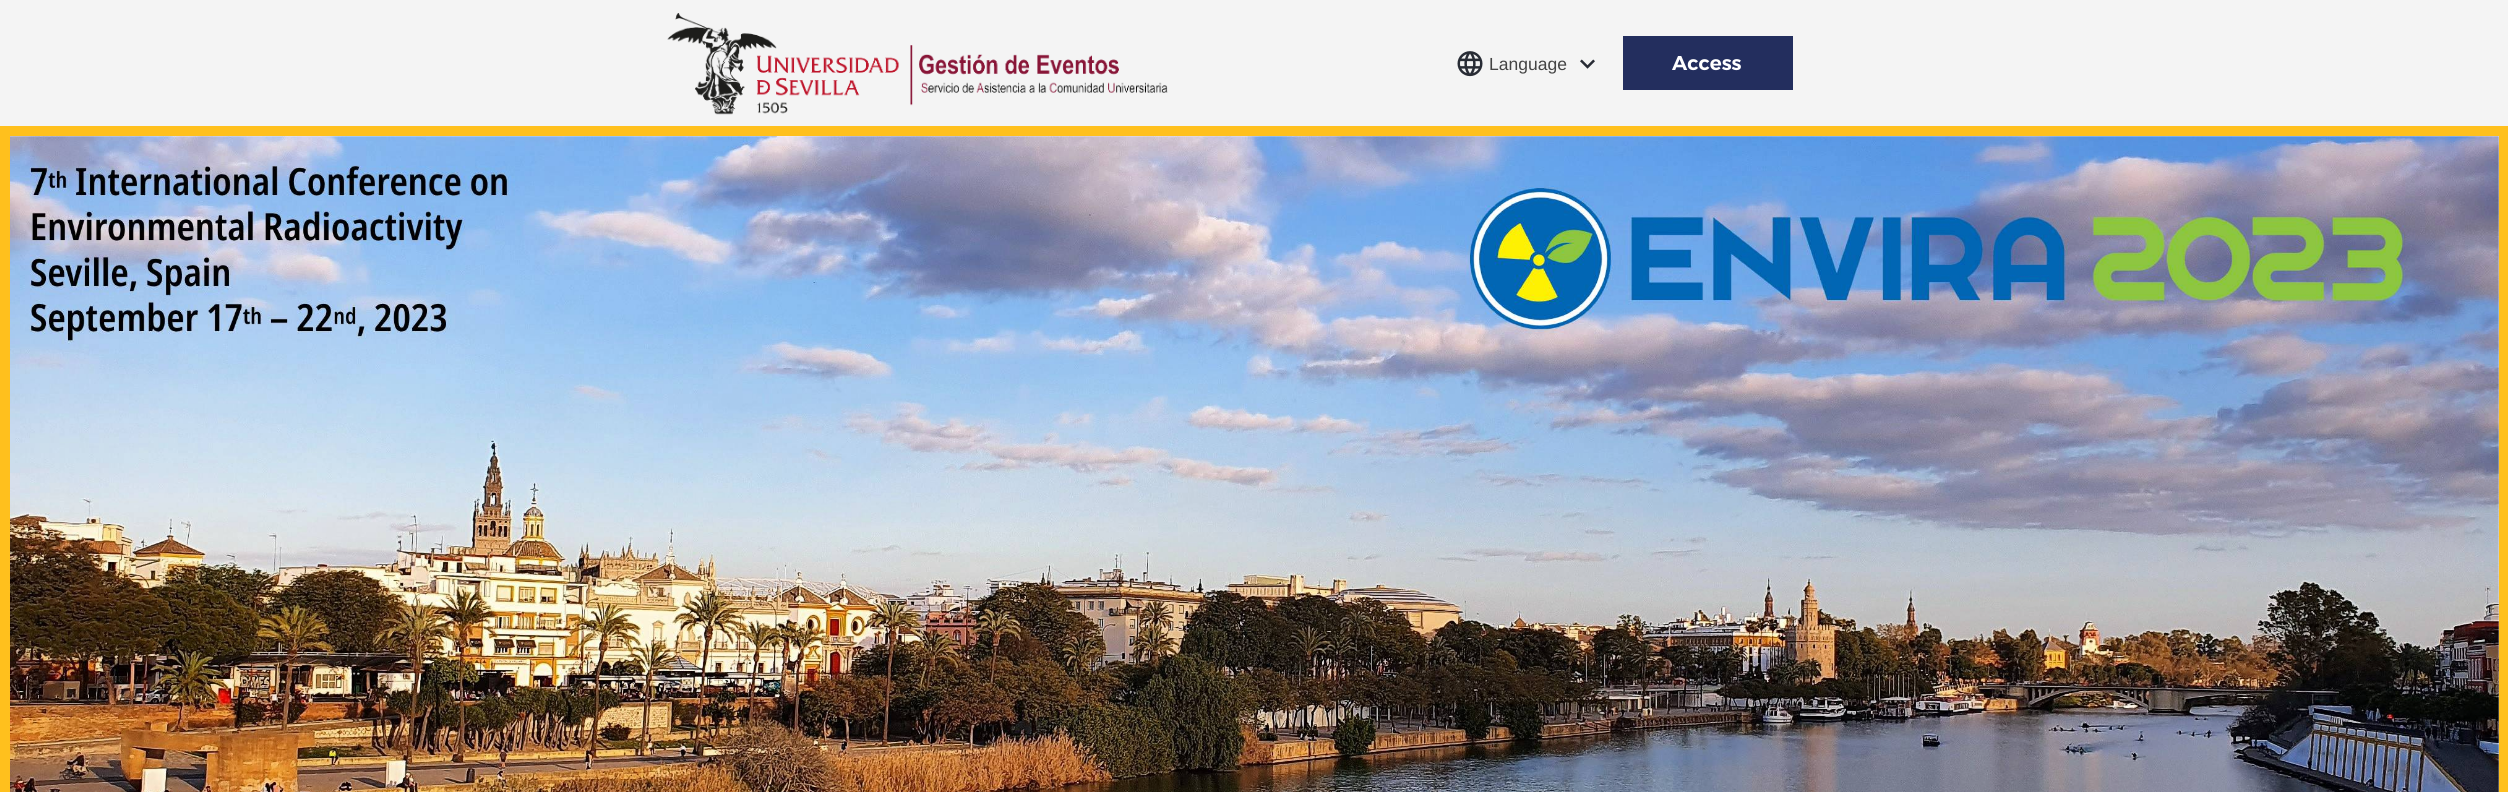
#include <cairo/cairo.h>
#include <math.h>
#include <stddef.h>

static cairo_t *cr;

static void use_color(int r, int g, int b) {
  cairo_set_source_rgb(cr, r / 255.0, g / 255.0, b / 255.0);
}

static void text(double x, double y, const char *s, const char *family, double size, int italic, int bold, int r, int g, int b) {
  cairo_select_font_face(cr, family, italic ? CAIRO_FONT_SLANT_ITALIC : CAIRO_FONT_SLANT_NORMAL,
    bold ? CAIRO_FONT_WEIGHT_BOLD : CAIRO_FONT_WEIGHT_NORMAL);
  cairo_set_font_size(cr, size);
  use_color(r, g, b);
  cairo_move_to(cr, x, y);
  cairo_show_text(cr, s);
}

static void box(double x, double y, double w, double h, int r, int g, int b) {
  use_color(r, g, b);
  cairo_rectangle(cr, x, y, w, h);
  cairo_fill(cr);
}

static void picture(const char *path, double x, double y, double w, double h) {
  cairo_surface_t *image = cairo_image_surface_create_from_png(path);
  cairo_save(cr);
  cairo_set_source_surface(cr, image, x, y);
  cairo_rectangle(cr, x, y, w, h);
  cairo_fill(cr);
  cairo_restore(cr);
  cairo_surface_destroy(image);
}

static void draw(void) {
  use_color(255, 255, 255);
  cairo_paint(cr);
  box(0, 0, 2508, 126, 244, 244, 244);
  picture("img_01.png", 667, 13, 501, 102);
  picture("img_02.png", 1457, 51, 26, 26);
  picture("img_03.png", 1580, 59, 15, 10);
  box(1623, 36, 170, 54, 35, 46, 94);
  cairo_rectangle(cr, 5, 131, 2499, 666);
  use_color(255, 192, 29);
  cairo_set_line_width(cr, 10);
  cairo_stroke(cr);
  picture("img_04.png", 10, 136, 2489, 656);
  text(1489, 70, "Language", "Liberation Sans", 17.5, 0, 0, 68, 68, 68);
  text(1672, 70, "Access", "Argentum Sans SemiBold", 20, 0, 0, 255, 255, 255);
}

int main(void) {
  cairo_surface_t *surface = cairo_image_surface_create(CAIRO_FORMAT_RGB24, 2508, 792);
  cr = cairo_create(surface);
  cairo_font_options_t *options = cairo_font_options_create();
  cairo_font_options_set_hint_metrics(options, CAIRO_HINT_METRICS_OFF);
  cairo_font_options_set_hint_style(options, CAIRO_HINT_STYLE_NONE);
  cairo_set_font_options(cr, options);
  cairo_set_miter_limit(cr, 4);
  draw();
  cairo_surface_write_to_png(surface, "out.png");
  cairo_font_options_destroy(options);
  cairo_destroy(cr);
  cairo_surface_destroy(surface);
  return 0;
}
